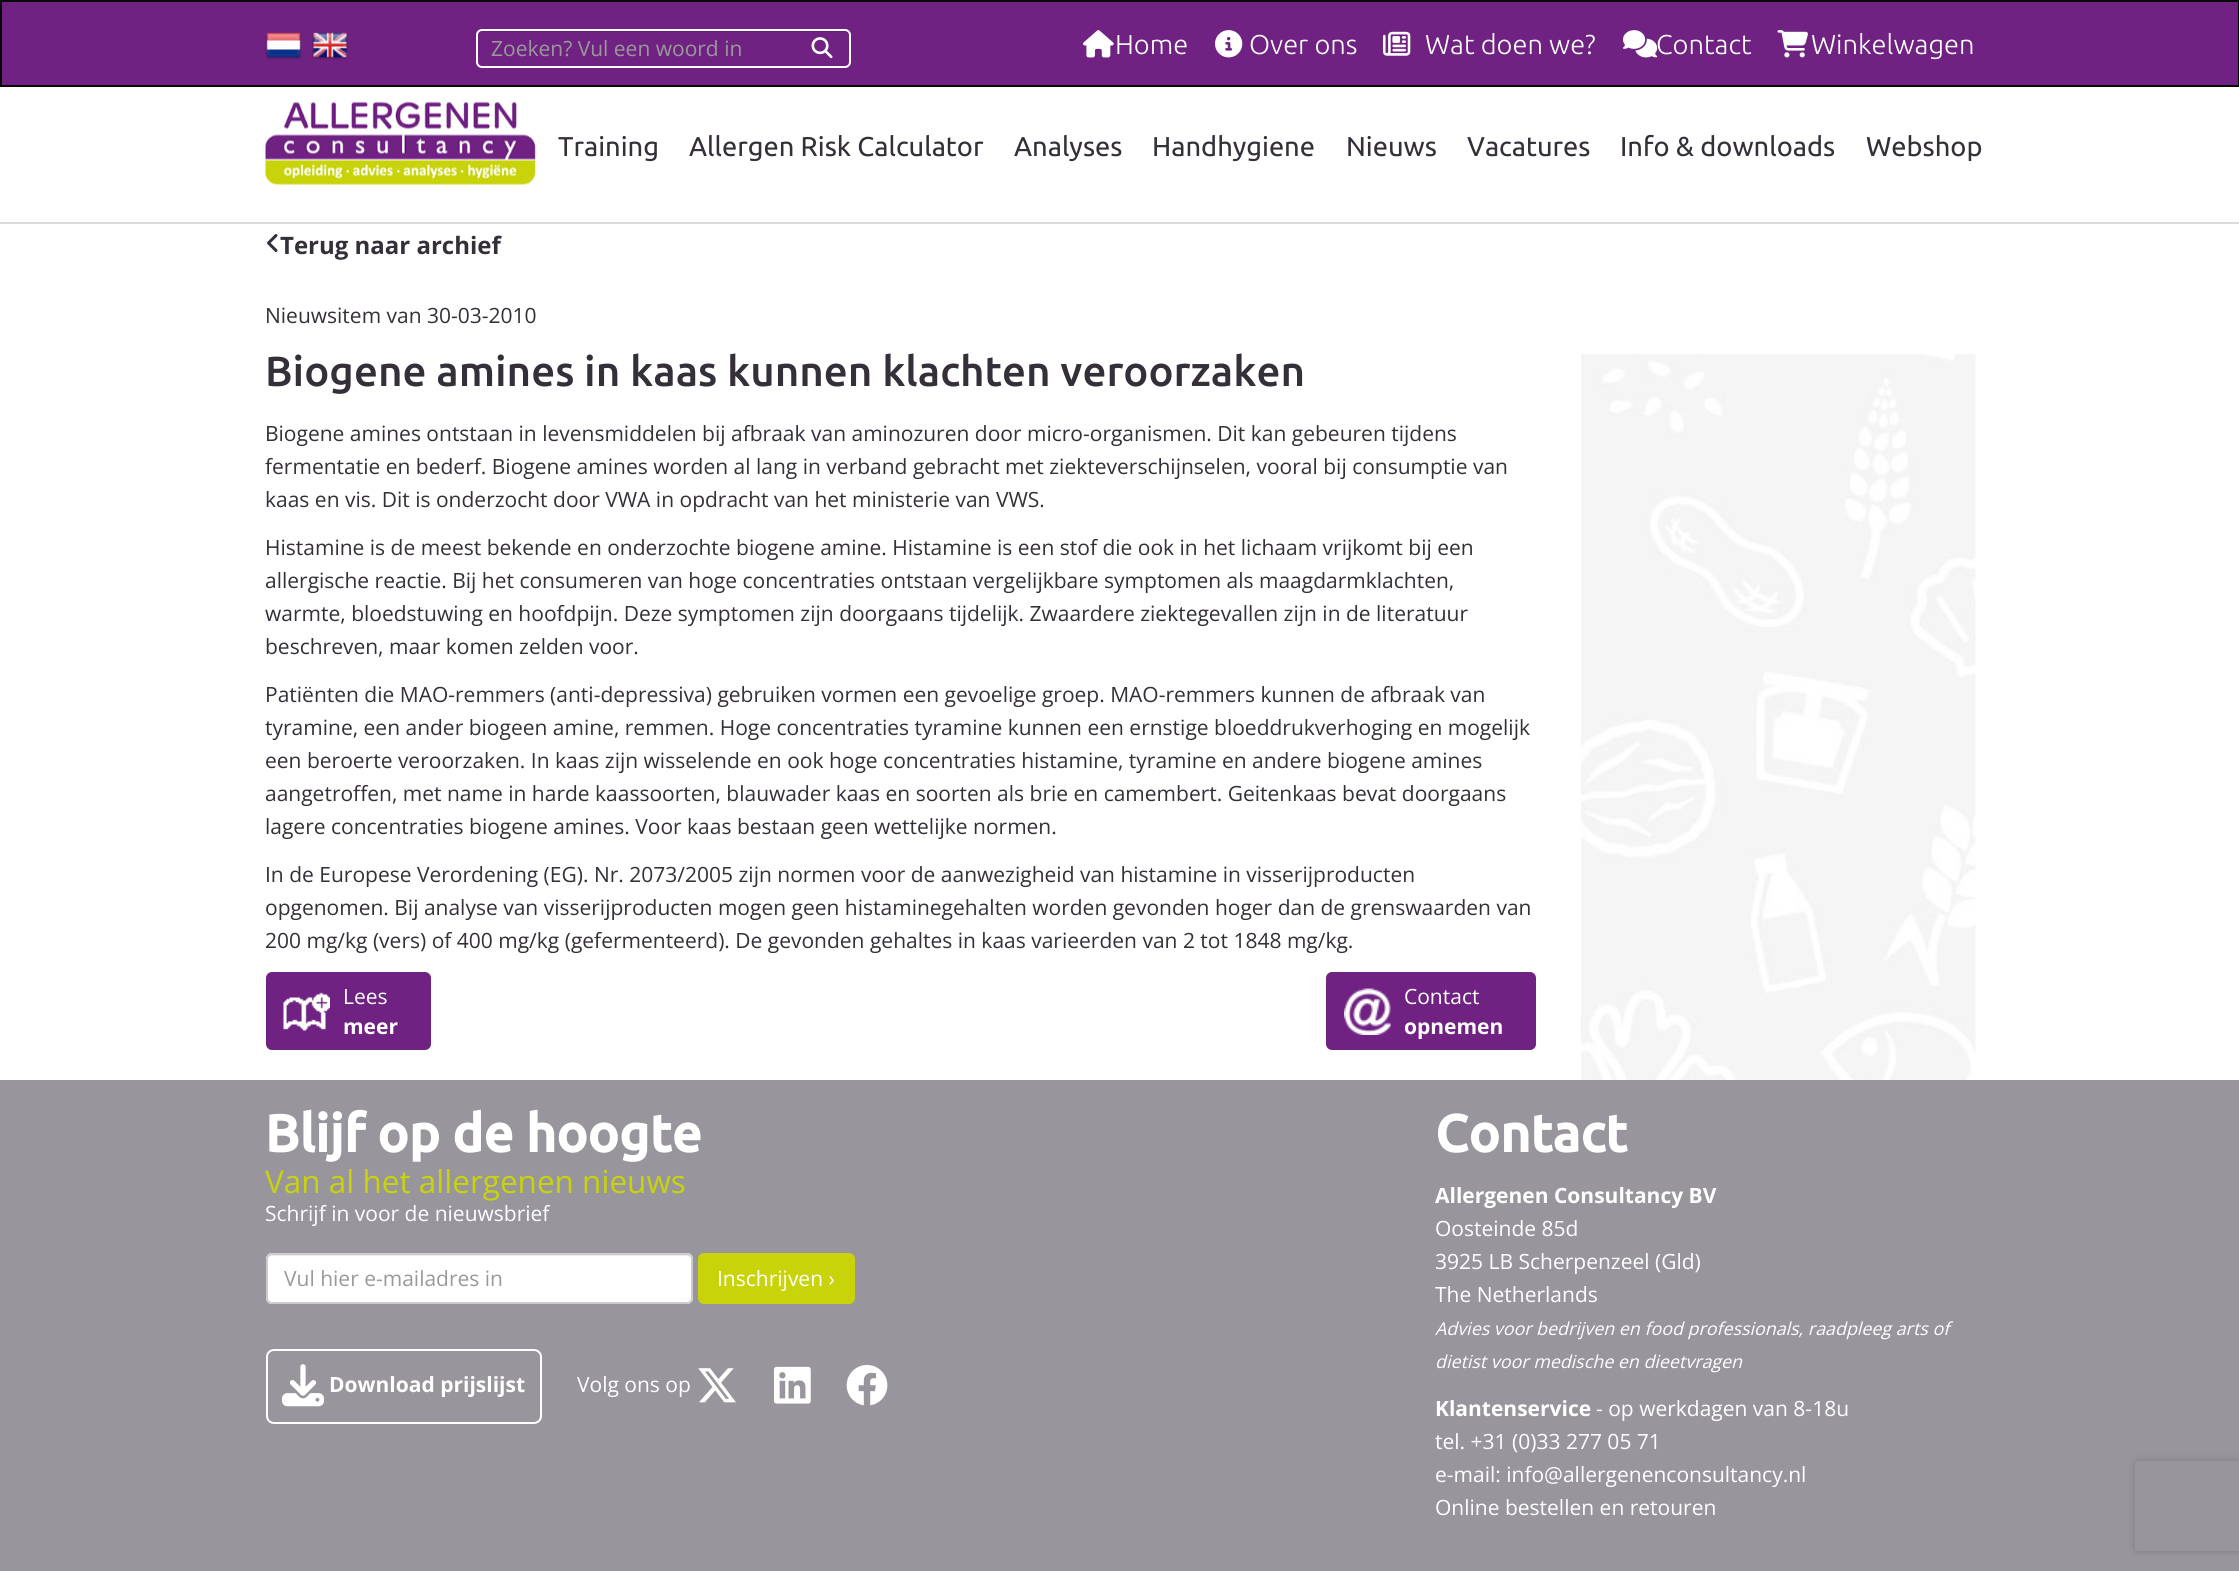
#include <cairo/cairo.h>
#include <math.h>
#include <stddef.h>

static cairo_t *cr;

static void use_color(int r, int g, int b) {
  cairo_set_source_rgb(cr, r / 255.0, g / 255.0, b / 255.0);
}

static void text(double x, double y, const char *s, const char *family, double size, int italic, int bold, int r, int g, int b) {
  cairo_select_font_face(cr, family, italic ? CAIRO_FONT_SLANT_ITALIC : CAIRO_FONT_SLANT_NORMAL,
    bold ? CAIRO_FONT_WEIGHT_BOLD : CAIRO_FONT_WEIGHT_NORMAL);
  cairo_set_font_size(cr, size);
  use_color(r, g, b);
  cairo_move_to(cr, x, y);
  cairo_show_text(cr, s);
}

static void box(double x, double y, double w, double h, int r, int g, int b) {
  use_color(r, g, b);
  cairo_rectangle(cr, x, y, w, h);
  cairo_fill(cr);
}

static void round_rect(double x, double y, double w, double h, double r) {
  cairo_new_sub_path(cr);
  cairo_arc(cr, x + w - r, y + h - r, r, 0, M_PI / 2);
  cairo_arc(cr, x + r, y + h - r, r, M_PI / 2, M_PI);
  cairo_arc(cr, x + r, y + r, r, M_PI, 1.5 * M_PI);
  cairo_arc(cr, x + w - r, y + r, r, 1.5 * M_PI, 2 * M_PI);
  cairo_close_path(cr);
}

static void shadow(double x, double y, double w, double h, double r, double blur, double alpha) {
  cairo_push_group_with_content(cr, CAIRO_CONTENT_ALPHA);
  cairo_set_operator(cr, CAIRO_OPERATOR_SOURCE);
  for (int i = 15; i >= -15 && fmin(w, h) + blur * i / 3 > 0; i -= 2) {
    double e = blur * i / 6;
    cairo_set_source_rgba(cr, 0, 0, 0, alpha * erfc((i - 1) / 8.5) / 2);
    round_rect(x - e, y - e, w + 2 * e, h + 2 * e, fmax(0, fmin(r + e + blur * .6, fmin(w, h) / 2 + e)));
    cairo_fill(cr);
  }
  cairo_pattern_t *soft = cairo_pop_group(cr);
  cairo_mask(cr, soft);
  cairo_pattern_destroy(soft);
}

static void picture(const char *path, double x, double y, double w, double h) {
  cairo_surface_t *image = cairo_image_surface_create_from_png(path);
  cairo_save(cr);
  cairo_set_source_surface(cr, image, x, y);
  cairo_rectangle(cr, x, y, w, h);
  cairo_fill(cr);
  cairo_restore(cr);
  cairo_surface_destroy(image);
}

static void draw(void) {
  use_color(255, 255, 255);
  cairo_paint(cr);
  box(0, 222, 2239, 2, 219, 219, 219);
  use_color(112, 34, 131);
  cairo_rectangle(cr, 1, 1, 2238, 85);
  cairo_fill_preserve(cr);
  use_color(8, 8, 8);
  cairo_stroke(cr);
  picture("img_01.png", 265, 31, 37, 29);
  picture("img_02.png", 312, 31, 36, 29);
  use_color(104, 31, 121);
  cairo_new_path(cr);
  cairo_move_to(cr, 482, 32);
  cairo_line_to(cr, 844, 32);
  cairo_curve_to(cr, 847, 32, 849, 34, 849, 36);
  cairo_line_to(cr, 849, 35);
  cairo_curve_to(cr, 849, 32, 847, 30, 844, 30);
  cairo_line_to(cr, 482, 30);
  cairo_curve_to(cr, 479, 30, 477, 32, 477, 35);
  cairo_line_to(cr, 477, 36);
  cairo_curve_to(cr, 477, 34, 479, 32, 482, 32);
  cairo_close_path(cr);
  cairo_fill(cr);
  round_rect(477, 30, 373, 37, 5);
  use_color(255, 255, 255);
  cairo_stroke(cr);
  picture("img_03.png", 811, 37, 22, 22);
  picture("img_04.png", 1083, 30, 31, 28);
  picture("img_05.png", 1215, 30, 28, 28);
  picture("img_06.png", 1383, 31, 28, 25);
  picture("img_08.png", 1777, 30, 31, 28);
  picture("img_09.png", 265, 101, 271, 84);
  picture("img_10.png", 267, 234, 11, 18);
  use_color(112, 34, 131);
  round_rect(266, 972, 165, 78, 6);
  cairo_fill(cr);
  picture("img_11.png", 283, 992, 47, 39);
  round_rect(1326, 972, 210, 78, 6);
  cairo_fill(cr);
  picture("img_12.png", 1344, 988, 47, 47);
  picture("img_13.png", 1581, 354, 395, 726);
  box(0, 1080, 2239, 491, 152, 149, 156);
  use_color(255, 255, 255);
  round_rect(266, 1253, 427, 51, 6);
  cairo_fill(cr);
  use_color(236, 236, 236);
  cairo_new_path(cr);
  cairo_move_to(cr, 272, 1256);
  cairo_line_to(cr, 687, 1256);
  cairo_curve_to(cr, 689, 1256, 692, 1258, 692, 1260);
  cairo_curve_to(cr, 692, 1257, 690, 1254, 687, 1254);
  cairo_line_to(cr, 272, 1254);
  cairo_curve_to(cr, 269, 1254, 267, 1257, 267, 1260);
  cairo_curve_to(cr, 267, 1258, 269, 1256, 272, 1256);
  cairo_close_path(cr);
  cairo_fill(cr);
  round_rect(267, 1254, 425, 49, 5);
  use_color(204, 204, 204);
  cairo_stroke(cr);
  use_color(200, 212, 9);
  round_rect(699, 1254, 155, 49, 5);
  cairo_fill_preserve(cr);
  cairo_stroke(cr);
  round_rect(267, 1350, 274, 73, 7);
  use_color(255, 255, 255);
  cairo_stroke(cr);
  picture("img_14.png", 282, 1364, 42, 43);
  picture("img_15.png", 698, 1368, 38, 35);
  picture("img_16.png", 774, 1366, 37, 38);
  picture("img_17.png", 846, 1364, 42, 42);
  cairo_save(cr);
  cairo_set_fill_rule(cr, CAIRO_FILL_RULE_EVEN_ODD);
  cairo_new_path(cr);
  cairo_move_to(cr, 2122, 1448);
  cairo_line_to(cr, 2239, 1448);
  cairo_line_to(cr, 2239, 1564);
  cairo_line_to(cr, 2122, 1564);
  cairo_close_path(cr);
  cairo_move_to(cr, 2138, 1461);
  cairo_line_to(cr, 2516, 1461);
  cairo_curve_to(cr, 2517.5, 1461, 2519, 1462.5, 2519, 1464);
  cairo_line_to(cr, 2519, 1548);
  cairo_curve_to(cr, 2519, 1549.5, 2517.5, 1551, 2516, 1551);
  cairo_line_to(cr, 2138, 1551);
  cairo_curve_to(cr, 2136.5, 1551, 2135, 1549.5, 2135, 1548);
  cairo_line_to(cr, 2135, 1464);
  cairo_curve_to(cr, 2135, 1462.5, 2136.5, 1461, 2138, 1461);
  cairo_close_path(cr);
  cairo_clip(cr);
  use_color(128, 128, 128);
  shadow(2135, 1461, 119, 90, 3, 4, 1);
  cairo_restore(cr);
  text(491, 56, "Zoeken? Vul een woord in", "Open Sans", 21, 0, 0, 153, 153, 153);
  text(1115, 54, "Home", "Ubuntu Light", 27.25, 0, 0, 255, 255, 255);
  text(1249, 54, "Over ons", "Ubuntu Light", 27.25, 0, 0, 255, 255, 255);
  text(1425, 54, "Wat doen we?", "Ubuntu Light", 27.25, 0, 0, 255, 255, 255);
  text(1656, 54, "Contact", "Ubuntu Light", 27.25, 0, 0, 255, 255, 255);
  picture("img_07.png", 1623, 30, 35, 28);
  text(1811, 54, "Winkelwagen", "Ubuntu Light", 27.25, 0, 0, 255, 255, 255);
  text(558, 156, "Training", "Ubuntu", 27.25, 0, 0, 52, 47, 57);
  text(689, 156, "Allergen Risk Calculator", "Ubuntu", 27.25, 0, 0, 52, 47, 57);
  text(1014, 156, "Analyses", "Ubuntu", 27.25, 0, 0, 52, 47, 57);
  text(1152, 156, "Handhygiene", "Ubuntu", 27.25, 0, 0, 52, 47, 57);
  text(1346, 156, "Nieuws", "Ubuntu", 27.25, 0, 0, 52, 47, 57);
  text(1467, 156, "Vacatures", "Ubuntu", 27.25, 0, 0, 52, 47, 57);
  text(1620, 156, "Info & downloads", "Ubuntu", 27.25, 0, 0, 52, 47, 57);
  text(1866, 156, "Webshop", "Ubuntu", 27.25, 0, 0, 52, 47, 57);
  text(280, 254, "Terug naar archief", "Open Sans", 24, 0, 1, 52, 47, 57);
  text(265, 323, "Nieuwsitem van 30-03-2010", "Open Sans", 21, 0, 0, 52, 47, 57);
  text(265, 386, "Biogene amines in kaas kunnen klachten veroorzaken", "Ubuntu Medium", 42, 0, 0, 52, 47, 57);
  text(265, 441, "Biogene amines ontstaan in levensmiddelen bij afbraak van aminozuren door micro-organismen. Dit kan gebeuren tijdens", "Open Sans", 21, 0, 0, 52, 47, 57);
  text(265, 474, "fermentatie en bederf. Biogene amines worden al lang in verband gebracht met ziekteverschijnselen, vooral bij consumptie van", "Open Sans", 21, 0, 0, 52, 47, 57);
  text(265, 507, "kaas en vis. Dit is onderzocht door VWA in opdracht van het ministerie van VWS.", "Open Sans", 21, 0, 0, 52, 47, 57);
  text(265, 555, "Histamine is de meest bekende en onderzochte biogene amine. Histamine is een stof die ook in het lichaam vrijkomt bij een", "Open Sans", 21, 0, 0, 52, 47, 57);
  text(265, 588, "allergische reactie. Bij het consumeren van hoge concentraties ontstaan vergelijkbare symptomen als maagdarmklachten,", "Open Sans", 21, 0, 0, 52, 47, 57);
  text(265, 621, "warmte, bloedstuwing en hoofdpijn. Deze symptomen zijn doorgaans tijdelijk. Zwaardere ziektegevallen zijn in de literatuur", "Open Sans", 21, 0, 0, 52, 47, 57);
  text(265, 654, "beschreven, maar komen zelden voor.", "Open Sans", 21, 0, 0, 52, 47, 57);
  text(265, 702, "Patiënten die MAO-remmers (anti-depressiva) gebruiken vormen een gevoelige groep. MAO-remmers kunnen de afbraak van", "Open Sans", 21, 0, 0, 52, 47, 57);
  text(265, 735, "tyramine, een ander biogeen amine, remmen. Hoge concentraties tyramine kunnen een ernstige bloeddrukverhoging en mogelijk", "Open Sans", 21, 0, 0, 52, 47, 57);
  text(265, 768, "een beroerte veroorzaken. In kaas zijn wisselende en ook hoge concentraties histamine, tyramine en andere biogene amines", "Open Sans", 21, 0, 0, 52, 47, 57);
  text(265, 801, "aangetroffen, met name in harde kaassoorten, blauwader kaas en soorten als brie en camembert. Geitenkaas bevat doorgaans", "Open Sans", 21, 0, 0, 52, 47, 57);
  text(265, 834, "lagere concentraties biogene amines. Voor kaas bestaan geen wettelijke normen.", "Open Sans", 21, 0, 0, 52, 47, 57);
  text(265, 882, "In de Europese Verordening (EG). Nr. 2073/2005 zijn normen voor de aanwezigheid van histamine in visserijproducten", "Open Sans", 21, 0, 0, 52, 47, 57);
  text(265, 915, "opgenomen. Bij analyse van visserijproducten mogen geen histaminegehalten worden gevonden hoger dan de grenswaarden van", "Open Sans", 21, 0, 0, 52, 47, 57);
  text(265, 948, "200 mg/kg (vers) of 400 mg/kg (gefermenteerd). De gevonden gehaltes in kaas varieerden van 2 tot 1848 mg/kg.", "Open Sans", 21, 0, 0, 52, 47, 57);
  text(343, 1004, "Lees", "Open Sans", 21, 0, 0, 255, 255, 255);
  text(343, 1034, "meer", "Open Sans", 21, 0, 1, 255, 255, 255);
  text(1404, 1004, "Contact", "Open Sans", 21, 0, 0, 255, 255, 255);
  text(1404, 1034, "opnemen", "Open Sans", 21, 0, 1, 255, 255, 255);
  text(265, 1152, "Blijf op de hoogte", "Ubuntu", 52.5, 0, 1, 255, 255, 255);
  text(265, 1193, "Van al het allergenen nieuws", "Open Sans", 31.5, 0, 0, 200, 212, 9);
  text(265, 1221, "Schrijf in voor de nieuwsbrief", "Open Sans", 21, 0, 0, 255, 255, 255);
  text(284, 1286, "Vul hier e-mailadres in", "Open Sans", 21, 0, 0, 153, 153, 153);
  text(717, 1286, "Inschrijven ›", "Open Sans", 21, 0, 0, 255, 255, 255);
  text(329, 1392, "Download prijslijst", "Open Sans", 21, 0, 1, 255, 255, 255);
  text(577, 1392, "Volg ons op", "Open Sans", 21, 0, 0, 255, 255, 255);
  text(1435, 1152, "Contact", "Ubuntu", 52.5, 0, 1, 255, 255, 255);
  text(1435, 1203, "Allergenen Consultancy BV", "Open Sans", 21, 0, 1, 255, 255, 255);
  text(1435, 1236, "Oosteinde 85d", "Open Sans", 21, 0, 0, 255, 255, 255);
  text(1435, 1269, "3925 LB Scherpenzeel (Gld)", "Open Sans", 21, 0, 0, 255, 255, 255);
  text(1435, 1302, "The Netherlands", "Open Sans", 21, 0, 0, 255, 255, 255);
  text(1435, 1335, "Advies voor bedrijven en food professionals, raadpleeg arts of", "Open Sans", 17.85, 1, 0, 255, 255, 255);
  text(1435, 1368, "dietist voor medische en dieetvragen", "Open Sans", 17.85, 1, 0, 255, 255, 255);
  text(1435, 1416, "Klantenservice", "Open Sans", 21, 0, 1, 255, 255, 255);
  text(1596, 1416, "- op werkdagen van 8-18u", "Open Sans", 21, 0, 0, 255, 255, 255);
  text(1435, 1449, "tel. +31 (0)33 277 05 71", "Open Sans", 21, 0, 0, 255, 255, 255);
  text(1435, 1482, "e-mail: info@allergenenconsultancy.nl", "Open Sans", 21, 0, 0, 255, 255, 255);
  text(1435, 1515, "Online bestellen en retouren", "Open Sans", 21, 0, 0, 255, 255, 255);
}

int main(void) {
  cairo_surface_t *surface = cairo_image_surface_create(CAIRO_FORMAT_RGB24, 2239, 1571);
  cr = cairo_create(surface);
  cairo_font_options_t *options = cairo_font_options_create();
  cairo_font_options_set_hint_metrics(options, CAIRO_HINT_METRICS_OFF);
  cairo_font_options_set_hint_style(options, CAIRO_HINT_STYLE_NONE);
  cairo_set_font_options(cr, options);
  cairo_set_miter_limit(cr, 4);
  draw();
  cairo_surface_write_to_png(surface, "out.png");
  cairo_font_options_destroy(options);
  cairo_destroy(cr);
  cairo_surface_destroy(surface);
  return 0;
}
